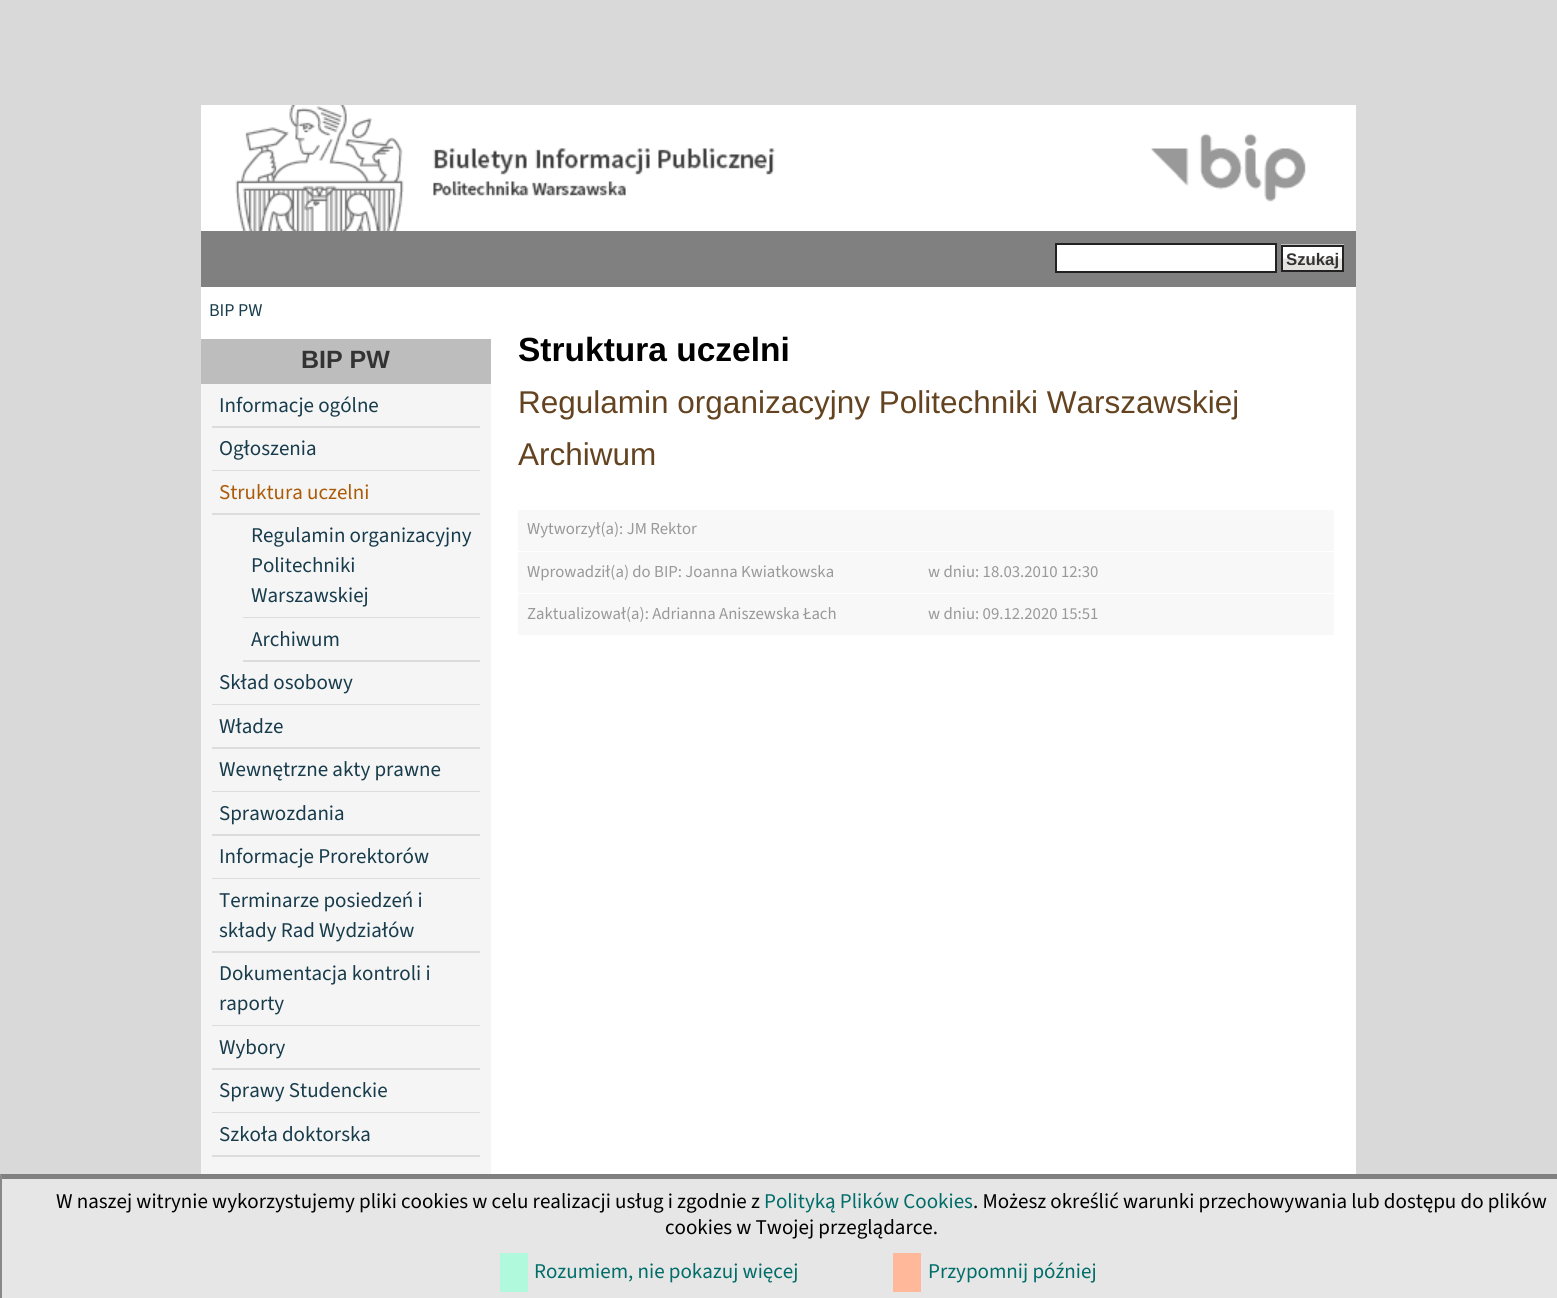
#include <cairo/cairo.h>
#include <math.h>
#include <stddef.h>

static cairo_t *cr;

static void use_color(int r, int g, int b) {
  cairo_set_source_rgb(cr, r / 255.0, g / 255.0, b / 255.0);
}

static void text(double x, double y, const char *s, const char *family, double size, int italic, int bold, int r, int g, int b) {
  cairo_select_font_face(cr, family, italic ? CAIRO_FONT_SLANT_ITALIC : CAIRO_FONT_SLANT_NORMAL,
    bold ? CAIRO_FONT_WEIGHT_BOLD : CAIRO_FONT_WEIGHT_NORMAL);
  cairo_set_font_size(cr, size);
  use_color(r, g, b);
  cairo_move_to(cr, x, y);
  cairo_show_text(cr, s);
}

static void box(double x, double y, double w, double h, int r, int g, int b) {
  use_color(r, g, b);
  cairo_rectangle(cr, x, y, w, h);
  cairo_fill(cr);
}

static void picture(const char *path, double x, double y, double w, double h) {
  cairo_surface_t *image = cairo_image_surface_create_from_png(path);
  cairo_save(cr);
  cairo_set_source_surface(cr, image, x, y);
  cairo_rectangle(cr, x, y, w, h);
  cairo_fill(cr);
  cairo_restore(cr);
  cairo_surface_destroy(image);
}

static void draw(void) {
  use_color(217, 217, 217);
  cairo_paint(cr);
  box(201, 105, 1155, 126, 255, 255, 255);
  picture("img_01.png", 235, 105, 1071, 126);
  box(201, 231, 1155, 56, 128, 128, 128);
  use_color(255, 255, 255);
  cairo_rectangle(cr, 1056, 244, 220, 28);
  cairo_fill_preserve(cr);
  use_color(34, 34, 34);
  cairo_stroke(cr);
  picture("img_02.png", 1281, 244, 63, 26);
  cairo_rectangle(cr, 1282, 246, 61, 25);
  cairo_stroke(cr);
  box(201, 287, 1155, 887, 255, 255, 255);
  box(201, 384, 290, 790, 245, 245, 245);
  box(201, 339, 290, 45, 189, 189, 189);
  box(212, 426, 268, 2, 220, 220, 220);
  box(212, 470, 268, 1, 220, 220, 220);
  box(212, 513, 268, 2, 220, 220, 220);
  box(243, 617, 237, 1, 220, 220, 220);
  box(243, 660, 237, 2, 220, 220, 220);
  box(212, 704, 268, 1, 220, 220, 220);
  box(212, 747, 268, 2, 220, 220, 220);
  box(212, 791, 268, 1, 220, 220, 220);
  box(212, 834, 268, 2, 220, 220, 220);
  box(212, 878, 268, 1, 220, 220, 220);
  box(212, 951, 268, 2, 220, 220, 220);
  box(212, 1025, 268, 1, 220, 220, 220);
  box(212, 1068, 268, 2, 220, 220, 220);
  box(212, 1112, 268, 1, 220, 220, 220);
  box(212, 1155, 268, 2, 220, 220, 220);
  box(518, 510, 816, 41, 248, 248, 248);
  box(518, 552, 816, 41, 248, 248, 248);
  box(518, 594, 816, 41, 248, 248, 248);
  box(2, 1179, 1555, 119, 230, 230, 230);
  use_color(128, 128, 128);
  cairo_new_path(cr);
  cairo_move_to(cr, 0, 1174);
  cairo_line_to(cr, 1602, 1174);
  cairo_line_to(cr, 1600, 1179);
  cairo_line_to(cr, 2, 1179);
  cairo_close_path(cr);
  cairo_fill(cr);
  use_color(136, 136, 136);
  cairo_new_path(cr);
  cairo_move_to(cr, 0, 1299);
  cairo_line_to(cr, 0, 1174);
  cairo_line_to(cr, 2, 1179);
  cairo_line_to(cr, 2, 1298);
  cairo_close_path(cr);
  cairo_fill(cr);
  box(500, 1253, 28, 39, 176, 249, 221);
  box(893, 1253, 28, 39, 255, 185, 154);
  text(1286, 265, "Szukaj", "Liberation Sans", 16.75, 0, 1, 51, 51, 51);
  text(209, 316, "BIP PW", "Source Sans 3", 18, 0, 0, 24, 60, 76);
  text(301, 368, "BIP PW", "Liberation Sans", 25, 0, 1, 51, 51, 51);
  text(219, 412, "Informacje ogólne", "Source Sans 3", 21, 0, 0, 24, 60, 76);
  text(219, 455, "Ogłoszenia", "Source Sans 3", 21, 0, 0, 24, 60, 76);
  text(219, 499, "Struktura uczelni", "Source Sans 3", 21, 0, 0, 171, 91, 7);
  text(251, 542, "Regulamin organizacyjny", "Source Sans 3", 21, 0, 0, 24, 60, 76);
  text(251, 572, "Politechniki", "Source Sans 3", 21, 0, 0, 24, 60, 76);
  text(251, 602, "Warszawskiej", "Source Sans 3", 21, 0, 0, 24, 60, 76);
  text(251, 646, "Archiwum", "Source Sans 3", 21, 0, 0, 24, 60, 76);
  text(219, 689, "Skład osobowy", "Source Sans 3", 21, 0, 0, 24, 60, 76);
  text(219, 733, "Władze", "Source Sans 3", 21, 0, 0, 24, 60, 76);
  text(219, 776, "Wewnętrzne akty prawne", "Source Sans 3", 21, 0, 0, 24, 60, 76);
  text(219, 820, "Sprawozdania", "Source Sans 3", 21, 0, 0, 24, 60, 76);
  text(219, 863, "Informacje Prorektorów", "Source Sans 3", 21, 0, 0, 24, 60, 76);
  text(219, 907, "Terminarze posiedzeń i", "Source Sans 3", 21, 0, 0, 24, 60, 76);
  text(219, 937, "składy Rad Wydziałów", "Source Sans 3", 21, 0, 0, 24, 60, 76);
  text(219, 980, "Dokumentacja kontroli i", "Source Sans 3", 21, 0, 0, 24, 60, 76);
  text(219, 1010, "raporty", "Source Sans 3", 21, 0, 0, 24, 60, 76);
  text(219, 1054, "Wybory", "Source Sans 3", 21, 0, 0, 24, 60, 76);
  text(219, 1097, "Sprawy Studenckie", "Source Sans 3", 21, 0, 0, 24, 60, 76);
  text(219, 1141, "Szkoła doktorska", "Source Sans 3", 21, 0, 0, 24, 60, 76);
  text(518, 361, "Struktura uczelni", "Liberation Sans", 33.5, 0, 1, 0, 0, 0);
  text(518, 413, "Regulamin organizacyjny Politechniki Warszawskiej", "Liberation Sans", 31.5, 0, 0, 100, 67, 32);
  text(518, 465, "Archiwum", "Liberation Sans", 31.5, 0, 0, 100, 67, 32);
  text(527, 534, "Wytworzył(a): JM Rektor", "Source Sans 3", 16.75, 0, 0, 153, 153, 153);
  text(527, 577, "Wprowadził(a) do BIP: Joanna Kwiatkowska", "Source Sans 3", 16.75, 0, 0, 153, 153, 153);
  text(928, 577, "w dniu: 18.03.2010 12:30", "Source Sans 3", 16.75, 0, 0, 153, 153, 153);
  text(527, 619, "Zaktualizował(a): Adrianna Aniszewska Łach", "Source Sans 3", 16.75, 0, 0, 153, 153, 153);
  text(928, 619, "w dniu: 09.12.2020 15:51", "Source Sans 3", 16.75, 0, 0, 153, 153, 153);
  text(56, 1208, "W naszej witrynie wykorzystujemy pliki cookies w celu realizacji usług i zgodnie z", "Source Sans 3", 21, 0, 0, 0, 0, 0);
  text(764, 1208, "Polityką Plików Cookies", "Source Sans 3", 21, 0, 0, 0, 109, 105);
  text(973, 1208, ". Możesz określić warunki przechowywania lub dostępu do plików", "Source Sans 3", 21, 0, 0, 0, 0, 0);
  text(665, 1234, "cookies w Twojej przeglądarce.", "Source Sans 3", 21, 0, 0, 0, 0, 0);
  text(534, 1278, "Rozumiem, nie pokazuj więcej", "Source Sans 3", 21, 0, 0, 0, 109, 105);
  text(928, 1278, "Przypomnij później", "Source Sans 3", 21, 0, 0, 0, 109, 105);
}

int main(void) {
  cairo_surface_t *surface = cairo_image_surface_create(CAIRO_FORMAT_RGB24, 1557, 1298);
  cr = cairo_create(surface);
  cairo_font_options_t *options = cairo_font_options_create();
  cairo_font_options_set_hint_metrics(options, CAIRO_HINT_METRICS_OFF);
  cairo_font_options_set_hint_style(options, CAIRO_HINT_STYLE_NONE);
  cairo_set_font_options(cr, options);
  cairo_set_miter_limit(cr, 4);
  draw();
  cairo_surface_write_to_png(surface, "out.png");
  cairo_font_options_destroy(options);
  cairo_destroy(cr);
  cairo_surface_destroy(surface);
  return 0;
}
